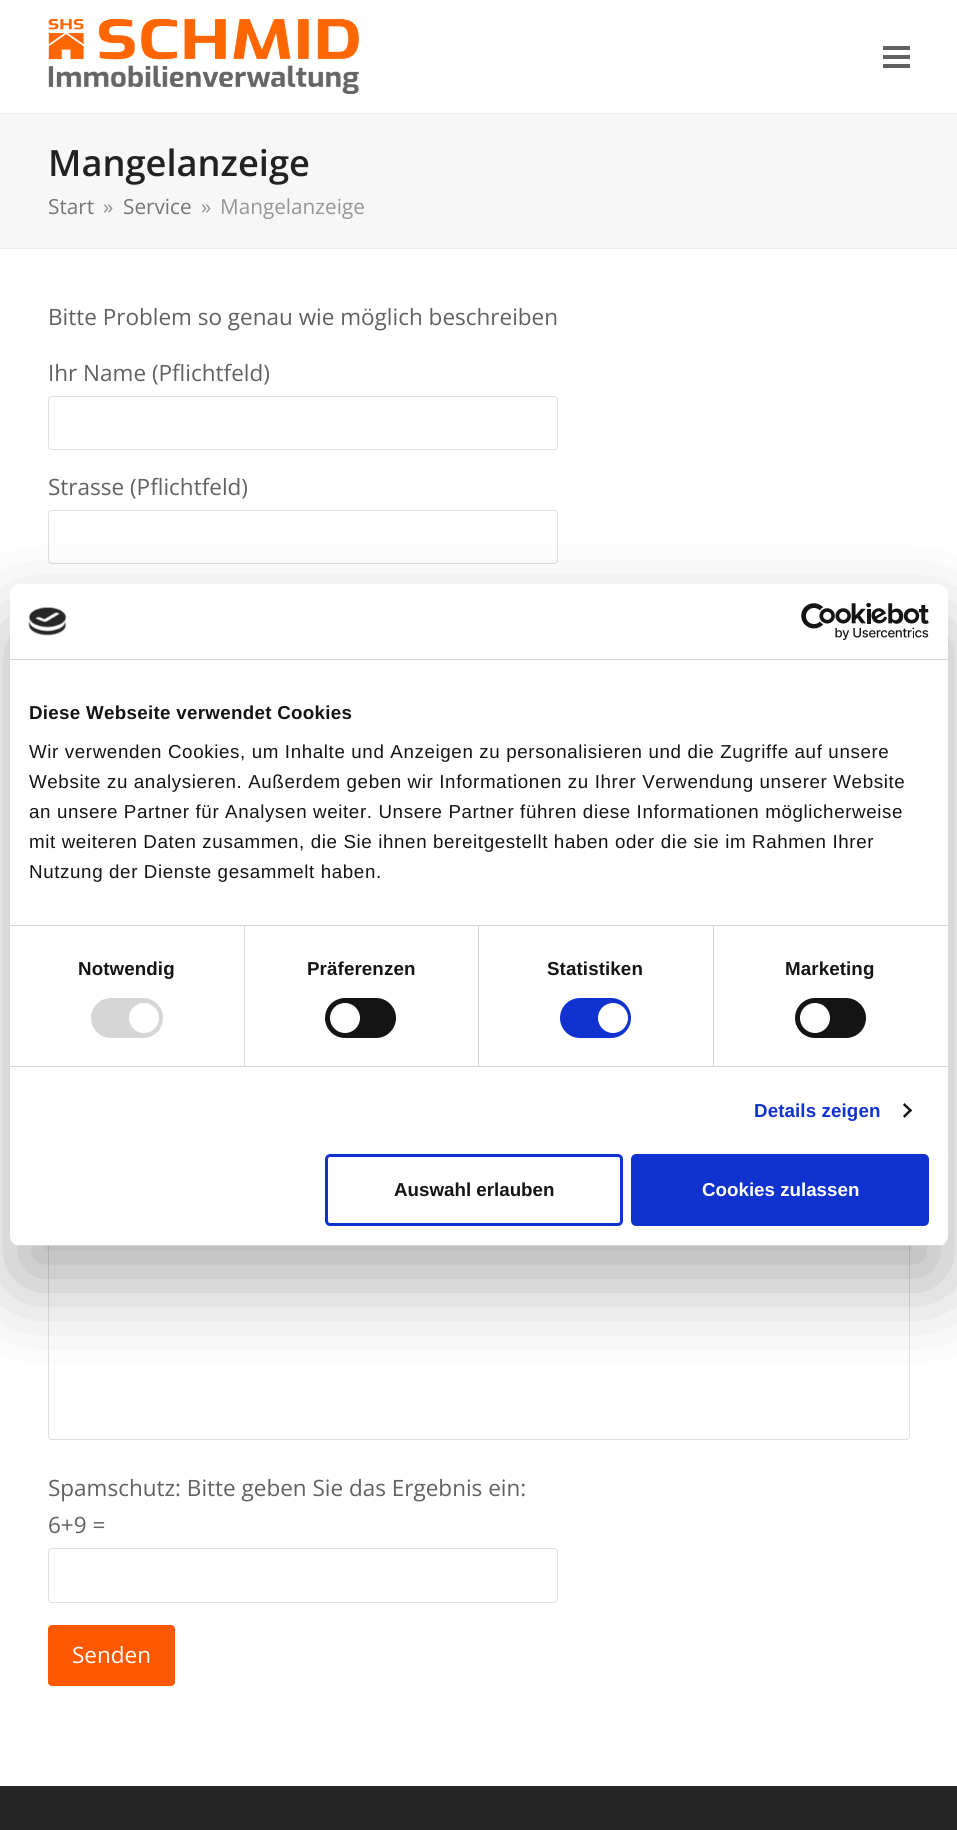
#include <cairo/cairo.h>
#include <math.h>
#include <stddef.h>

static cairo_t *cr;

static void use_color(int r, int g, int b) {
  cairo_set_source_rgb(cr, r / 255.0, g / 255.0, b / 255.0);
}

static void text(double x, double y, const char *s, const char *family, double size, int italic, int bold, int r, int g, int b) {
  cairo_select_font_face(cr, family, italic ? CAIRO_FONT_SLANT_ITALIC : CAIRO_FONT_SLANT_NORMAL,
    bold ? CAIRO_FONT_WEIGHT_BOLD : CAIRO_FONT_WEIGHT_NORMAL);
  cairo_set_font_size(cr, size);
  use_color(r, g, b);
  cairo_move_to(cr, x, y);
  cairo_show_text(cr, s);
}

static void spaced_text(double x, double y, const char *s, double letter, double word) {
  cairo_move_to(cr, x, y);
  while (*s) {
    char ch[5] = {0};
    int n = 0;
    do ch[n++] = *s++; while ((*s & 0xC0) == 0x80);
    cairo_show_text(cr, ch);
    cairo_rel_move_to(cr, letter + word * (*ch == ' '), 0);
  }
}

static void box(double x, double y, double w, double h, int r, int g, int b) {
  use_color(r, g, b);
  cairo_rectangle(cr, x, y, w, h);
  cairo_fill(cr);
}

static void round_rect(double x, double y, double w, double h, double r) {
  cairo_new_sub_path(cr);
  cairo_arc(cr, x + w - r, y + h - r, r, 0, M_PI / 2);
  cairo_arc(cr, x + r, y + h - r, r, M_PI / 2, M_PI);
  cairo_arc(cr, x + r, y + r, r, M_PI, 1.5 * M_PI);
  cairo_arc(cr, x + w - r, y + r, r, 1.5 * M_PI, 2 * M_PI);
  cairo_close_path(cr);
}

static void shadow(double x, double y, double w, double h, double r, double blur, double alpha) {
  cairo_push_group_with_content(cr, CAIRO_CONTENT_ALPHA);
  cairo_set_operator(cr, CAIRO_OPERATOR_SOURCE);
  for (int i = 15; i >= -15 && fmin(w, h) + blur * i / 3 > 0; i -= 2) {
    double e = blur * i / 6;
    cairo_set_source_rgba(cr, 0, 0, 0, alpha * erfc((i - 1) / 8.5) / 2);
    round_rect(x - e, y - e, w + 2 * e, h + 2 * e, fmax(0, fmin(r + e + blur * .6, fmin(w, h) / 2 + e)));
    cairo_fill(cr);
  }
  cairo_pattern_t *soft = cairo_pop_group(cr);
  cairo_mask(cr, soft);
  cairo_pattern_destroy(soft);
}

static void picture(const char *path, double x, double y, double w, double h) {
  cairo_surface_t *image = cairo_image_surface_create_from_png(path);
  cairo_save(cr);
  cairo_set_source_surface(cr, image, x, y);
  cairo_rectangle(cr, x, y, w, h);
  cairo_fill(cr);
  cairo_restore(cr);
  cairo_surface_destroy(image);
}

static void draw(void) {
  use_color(255, 255, 255);
  cairo_paint(cr);
  picture("img_01.png", 48, 19, 311, 75);
  box(883, 55, 27, 4, 97, 97, 97);
  box(883, 46, 27, 4, 97, 97, 97);
  box(883, 64, 27, 4, 97, 97, 97);
  box(0, 114, 957, 134, 247, 247, 247);
  box(0, 113, 957, 1, 238, 238, 238);
  box(0, 248, 957, 1, 238, 238, 238);
  round_rect(48.5, 396.5, 509, 53, 3.5);
  use_color(224, 224, 224);
  cairo_set_line_width(cr, 1);
  cairo_stroke(cr);
  round_rect(48.5, 510.5, 509, 53, 3.5);
  cairo_stroke(cr);
  round_rect(48.5, 1058.5, 861, 381, 3.5);
  cairo_stroke(cr);
  round_rect(48.5, 1548.5, 509, 54, 3.5);
  cairo_stroke(cr);
  use_color(254, 89, 0);
  round_rect(48, 1625, 127, 61, 4);
  cairo_fill(cr);
  box(0, 1786, 957, 44, 38, 38, 38);
  use_color(0, 0, 0);
  shadow(10, 624, 938, 662, 10, 42.5, 0.3);
  use_color(255, 255, 255);
  round_rect(10, 584, 938, 662, 10);
  cairo_fill(cr);
  box(10, 659, 938, 1, 214, 214, 214);
  picture("img_02.png", 28, 607, 39, 29);
  picture("img_03.png", 801, 603, 128, 37);
  box(10, 925, 938, 1, 214, 214, 214);
  box(10, 1066, 938, 1, 214, 214, 214);
  box(244, 926, 1, 140, 214, 214, 214);
  round_rect(91, 998, 72, 40, 20);
  cairo_fill(cr);
  use_color(255, 255, 255);
  cairo_arc(cr, 144, 1018, 15, 0, 2 * M_PI);
  cairo_fill(cr);
  box(478, 926, 1, 140, 214, 214, 214);
  use_color(20, 20, 20);
  round_rect(325, 998, 71, 40, 20);
  cairo_fill(cr);
  use_color(255, 255, 255);
  cairo_arc(cr, 345, 1018, 15, 0, 2 * M_PI);
  cairo_fill(cr);
  box(713, 926, 1, 140, 214, 214, 214);
  use_color(16, 50, 207);
  round_rect(560, 998, 71, 40, 20);
  cairo_fill(cr);
  use_color(255, 255, 255);
  cairo_arc(cr, 613, 1018, 15, 0, 2 * M_PI);
  cairo_fill(cr);
  use_color(20, 20, 20);
  round_rect(795, 998, 71, 40, 20);
  cairo_fill(cr);
  use_color(255, 255, 255);
  cairo_arc(cr, 815, 1018, 15, 0, 2 * M_PI);
  cairo_fill(cr);
  use_color(20, 20, 20);
  cairo_new_path(cr);
  cairo_move_to(cr, 904.5, 1103);
  cairo_line_to(cr, 912, 1110.5);
  cairo_line_to(cr, 910.5, 1112);
  cairo_line_to(cr, 903, 1105);
  cairo_close_path(cr);
  cairo_fill(cr);
  cairo_new_path(cr);
  cairo_move_to(cr, 910.5, 1108.5);
  cairo_line_to(cr, 912, 1110.5);
  cairo_line_to(cr, 904.5, 1118);
  cairo_line_to(cr, 903, 1116);
  cairo_close_path(cr);
  cairo_fill(cr);
  cairo_save(cr);
  round_rect(10, 584, 938, 662, 10);
  cairo_clip(cr);
  box(10, 1245, 938, 1, 214, 214, 214);
  cairo_restore(cr);
  round_rect(326.5, 1155.5, 295, 69, 3.5);
  use_color(16, 50, 207);
  cairo_set_line_width(cr, 3);
  cairo_stroke(cr);
  round_rect(632.5, 1155.5, 295, 69, 3.5);
  cairo_fill_preserve(cr);
  cairo_stroke(cr);
  text(48, 176, "Mangelanzeige", "Open Sans SemiBold", 36.25, 0, 0, 34, 34, 34);
  text(48, 214, "Start", "Open Sans", 20.75, 0, 0, 117, 117, 117);
  text(103, 214, "»", "Open Sans", 20.75, 0, 0, 150, 150, 150);
  text(123, 214, "Service", "Open Sans", 20.75, 0, 0, 117, 117, 117);
  text(201, 214, "»", "Open Sans", 20.75, 0, 0, 150, 150, 150);
  text(220, 214, "Mangelanzeige", "Open Sans", 20.75, 0, 0, 150, 150, 150);
  text(48, 325, "Bitte Problem so genau wie möglich beschreiben", "Open Sans", 22.5, 0, 0, 97, 97, 97);
  text(48, 381, "Ihr Name (Pflichtfeld)", "Open Sans", 22.5, 0, 0, 97, 97, 97);
  text(48, 495, "Strasse (Pflichtfeld)", "Open Sans", 22.5, 0, 0, 97, 97, 97);
  text(48, 1496, "Spamschutz: Bitte geben Sie das Ergebnis ein:", "Open Sans", 22.5, 0, 0, 97, 97, 97);
  text(48, 1533, "6+9 =", "Open Sans", 22.5, 0, 0, 97, 97, 97);
  text(72, 1663, "Senden", "Open Sans", 22.5, 0, 0, 255, 255, 255);
  cairo_select_font_face(cr, "Liberation Sans", CAIRO_FONT_SLANT_NORMAL, CAIRO_FONT_WEIGHT_BOLD);
  cairo_set_font_size(cr, 18.75);
  use_color(20, 20, 20);
  spaced_text(29, 719, "Diese Webseite verwendet Cookies", 0.3, 0);
  cairo_select_font_face(cr, "Liberation Sans", CAIRO_FONT_SLANT_NORMAL, CAIRO_FONT_WEIGHT_NORMAL);
  spaced_text(29, 758, "Wir verwenden Cookies, um Inhalte und Anzeigen zu personalisieren und die Zugriffe auf unsere", 0.62, 0);
  spaced_text(29, 788, "Website zu analysieren. Außerdem geben wir Informationen zu Ihrer Verwendung unserer Website", 0.62, 0);
  spaced_text(29, 818, "an unsere Partner für Analysen weiter. Unsere Partner führen diese Informationen möglicherweise", 0.62, 0);
  spaced_text(29, 848, "mit weiteren Daten zusammen, die Sie ihnen bereitgestellt haben oder die sie im Rahmen Ihrer", 0.62, 0);
  spaced_text(29, 878, "Nutzung der Dienste gesammelt haben.", 0.62, 0);
  cairo_select_font_face(cr, "Liberation Sans", CAIRO_FONT_SLANT_NORMAL, CAIRO_FONT_WEIGHT_BOLD);
  spaced_text(78, 975, "Notwendig", 0.1, 0);
  spaced_text(307, 975, "Präferenzen", 0.1, 0);
  spaced_text(547, 975, "Statistiken", 0.1, 0);
  spaced_text(785, 975, "Marketing", 0.1, 0);
  use_color(16, 50, 207);
  spaced_text(754, 1117, "Details zeigen", 0.1, 0);
  text(394, 1196, "Auswahl erlauben", "Liberation Sans", 18.75, 0, 1, 20, 20, 20);
  text(702, 1196, "Cookies zulassen", "Liberation Sans", 18.75, 0, 1, 255, 255, 255);
}

int main(void) {
  cairo_surface_t *surface = cairo_image_surface_create(CAIRO_FORMAT_RGB24, 957, 1830);
  cr = cairo_create(surface);
  cairo_font_options_t *options = cairo_font_options_create();
  cairo_font_options_set_hint_metrics(options, CAIRO_HINT_METRICS_OFF);
  cairo_font_options_set_hint_style(options, CAIRO_HINT_STYLE_NONE);
  cairo_set_font_options(cr, options);
  cairo_set_miter_limit(cr, 4);
  draw();
  cairo_surface_write_to_png(surface, "out.png");
  cairo_font_options_destroy(options);
  cairo_destroy(cr);
  cairo_surface_destroy(surface);
  return 0;
}
